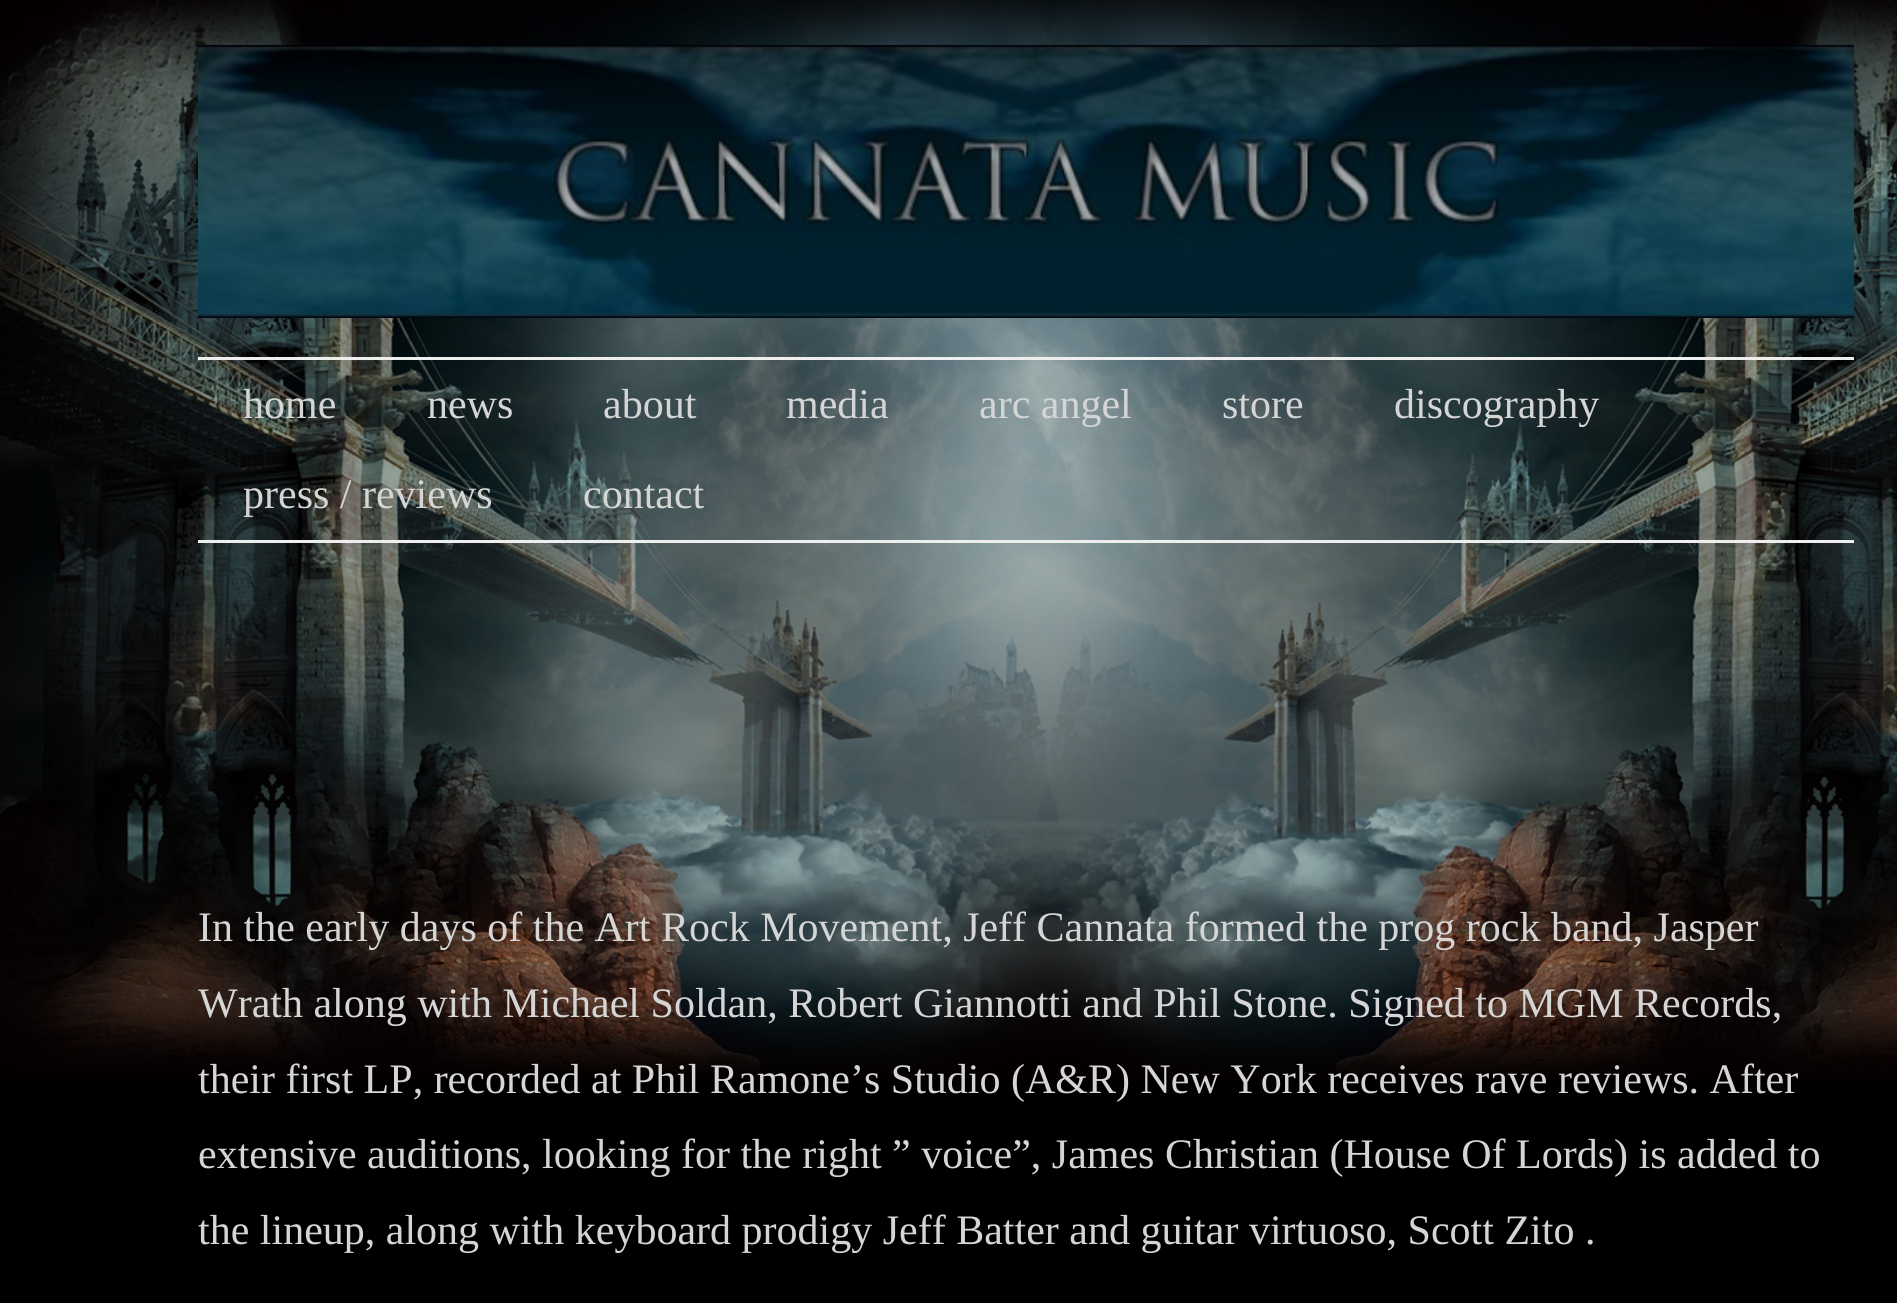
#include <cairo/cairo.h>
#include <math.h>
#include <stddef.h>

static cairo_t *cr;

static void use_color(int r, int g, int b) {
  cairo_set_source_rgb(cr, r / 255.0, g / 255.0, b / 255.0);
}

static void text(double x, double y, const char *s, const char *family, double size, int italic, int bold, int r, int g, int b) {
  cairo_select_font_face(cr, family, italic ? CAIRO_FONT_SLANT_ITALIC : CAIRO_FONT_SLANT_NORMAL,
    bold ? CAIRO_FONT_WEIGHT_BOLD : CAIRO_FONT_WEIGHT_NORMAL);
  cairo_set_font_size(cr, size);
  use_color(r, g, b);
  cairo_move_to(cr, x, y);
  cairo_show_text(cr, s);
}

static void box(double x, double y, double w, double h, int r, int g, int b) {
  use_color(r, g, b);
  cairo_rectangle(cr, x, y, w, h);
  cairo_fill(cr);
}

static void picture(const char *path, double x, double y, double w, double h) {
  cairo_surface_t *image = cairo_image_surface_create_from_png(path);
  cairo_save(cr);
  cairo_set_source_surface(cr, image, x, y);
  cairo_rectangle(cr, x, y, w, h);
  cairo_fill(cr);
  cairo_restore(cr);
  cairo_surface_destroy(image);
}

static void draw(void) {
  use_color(0, 0, 0);
  cairo_paint(cr);
  picture("img_01.png", 0, 0, 1897, 1079);
  picture("img_02.png", 198, 45, 1656, 273);
  box(198, 357, 1656, 3, 238, 238, 238);
  box(198, 540, 1656, 3, 238, 238, 238);
  text(243, 418, "home", "Liberation Serif", 42, 0, 0, 213, 213, 213);
  text(427, 418, "news", "Liberation Serif", 42, 0, 0, 213, 213, 213);
  text(603, 418, "about", "Liberation Serif", 42, 0, 0, 213, 213, 213);
  text(786, 418, "media", "Liberation Serif", 42, 0, 0, 213, 213, 213);
  text(979, 418, "arc angel", "Liberation Serif", 42, 0, 0, 213, 213, 213);
  text(1222, 418, "store", "Liberation Serif", 42, 0, 0, 213, 213, 213);
  text(1394, 418, "discography", "Liberation Serif", 42, 0, 0, 213, 213, 213);
  text(243, 508, "press / reviews", "Liberation Serif", 42, 0, 0, 213, 213, 213);
  text(583, 508, "contact", "Liberation Serif", 42, 0, 0, 213, 213, 213);
  text(198, 941, "In the early days of the Art Rock Movement, Jeff Cannata formed the prog rock band, Jasper", "Liberation Serif", 42, 0, 0, 213, 213, 213);
  text(198, 1017, "Wrath along with Michael Soldan, Robert Giannotti and Phil Stone. Signed to MGM Records,", "Liberation Serif", 42, 0, 0, 213, 213, 213);
  text(198, 1093, "their first LP, recorded at Phil Ramone’s Studio (A&R) New York receives rave reviews. After", "Liberation Serif", 42, 0, 0, 213, 213, 213);
  text(198, 1168, "extensive auditions, looking for the right ” voice”, James Christian (House Of Lords) is added to", "Liberation Serif", 42, 0, 0, 213, 213, 213);
  text(198, 1244, "the lineup, along with keyboard prodigy Jeff Batter and guitar virtuoso, Scott Zito .", "Liberation Serif", 42, 0, 0, 213, 213, 213);
}

int main(void) {
  cairo_surface_t *surface = cairo_image_surface_create(CAIRO_FORMAT_RGB24, 1897, 1303);
  cr = cairo_create(surface);
  cairo_font_options_t *options = cairo_font_options_create();
  cairo_font_options_set_hint_metrics(options, CAIRO_HINT_METRICS_OFF);
  cairo_font_options_set_hint_style(options, CAIRO_HINT_STYLE_NONE);
  cairo_set_font_options(cr, options);
  cairo_set_miter_limit(cr, 4);
  draw();
  cairo_surface_write_to_png(surface, "out.png");
  cairo_font_options_destroy(options);
  cairo_destroy(cr);
  cairo_surface_destroy(surface);
  return 0;
}
